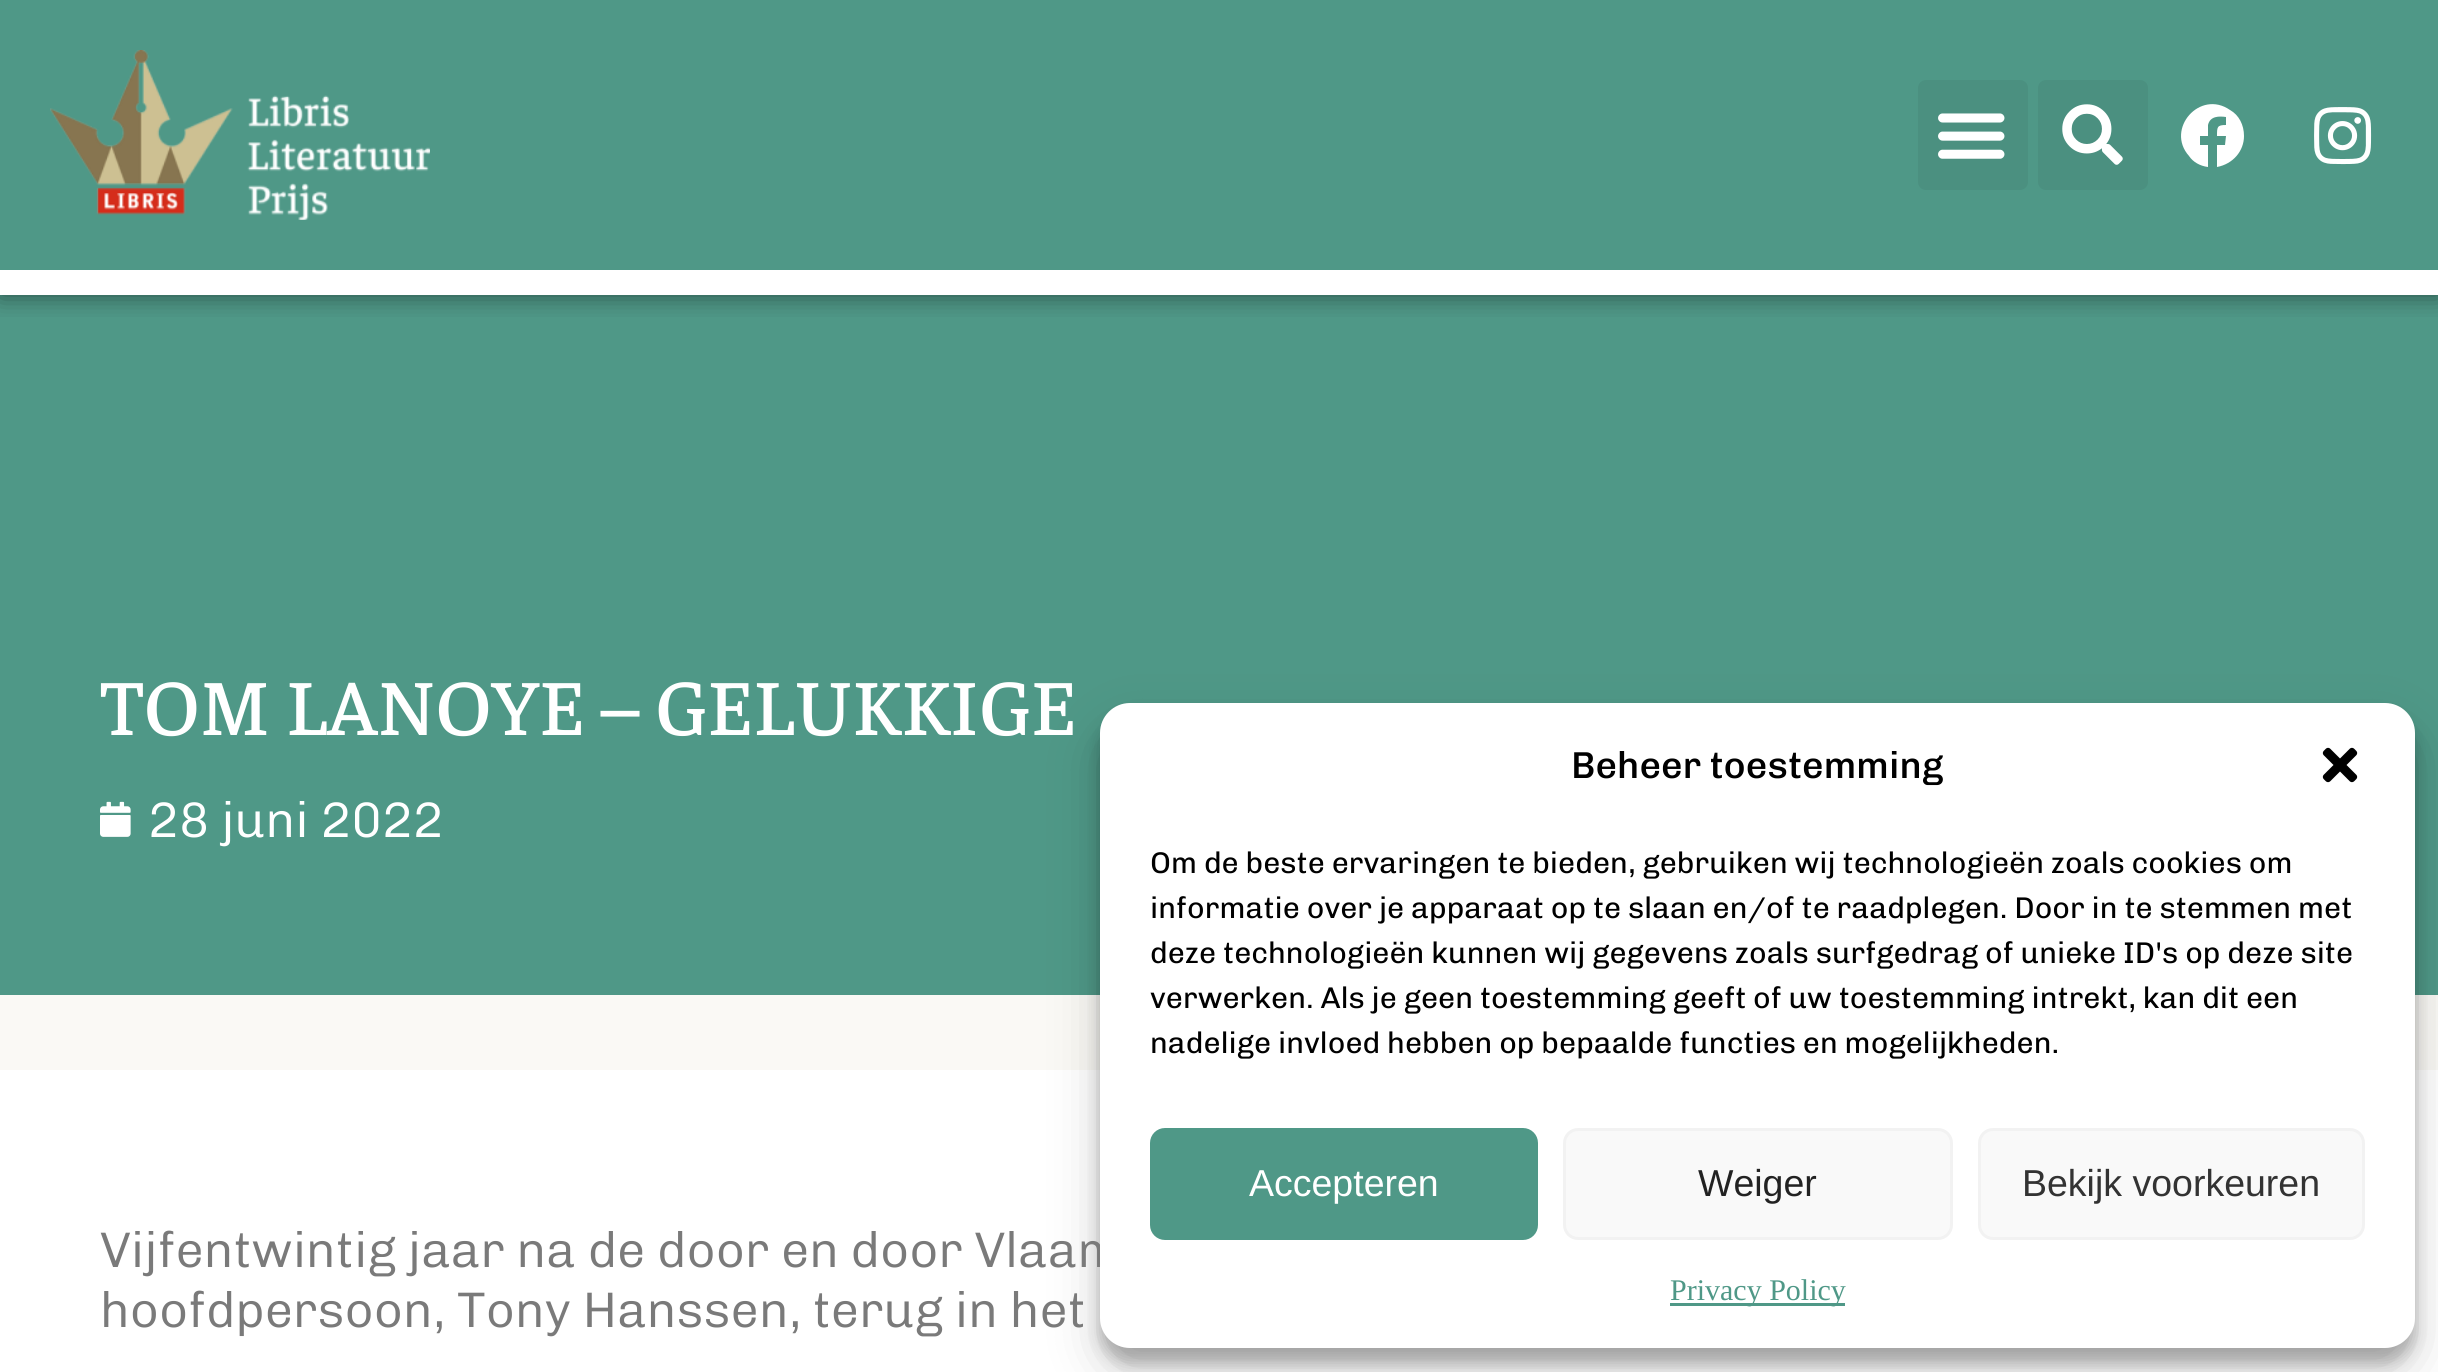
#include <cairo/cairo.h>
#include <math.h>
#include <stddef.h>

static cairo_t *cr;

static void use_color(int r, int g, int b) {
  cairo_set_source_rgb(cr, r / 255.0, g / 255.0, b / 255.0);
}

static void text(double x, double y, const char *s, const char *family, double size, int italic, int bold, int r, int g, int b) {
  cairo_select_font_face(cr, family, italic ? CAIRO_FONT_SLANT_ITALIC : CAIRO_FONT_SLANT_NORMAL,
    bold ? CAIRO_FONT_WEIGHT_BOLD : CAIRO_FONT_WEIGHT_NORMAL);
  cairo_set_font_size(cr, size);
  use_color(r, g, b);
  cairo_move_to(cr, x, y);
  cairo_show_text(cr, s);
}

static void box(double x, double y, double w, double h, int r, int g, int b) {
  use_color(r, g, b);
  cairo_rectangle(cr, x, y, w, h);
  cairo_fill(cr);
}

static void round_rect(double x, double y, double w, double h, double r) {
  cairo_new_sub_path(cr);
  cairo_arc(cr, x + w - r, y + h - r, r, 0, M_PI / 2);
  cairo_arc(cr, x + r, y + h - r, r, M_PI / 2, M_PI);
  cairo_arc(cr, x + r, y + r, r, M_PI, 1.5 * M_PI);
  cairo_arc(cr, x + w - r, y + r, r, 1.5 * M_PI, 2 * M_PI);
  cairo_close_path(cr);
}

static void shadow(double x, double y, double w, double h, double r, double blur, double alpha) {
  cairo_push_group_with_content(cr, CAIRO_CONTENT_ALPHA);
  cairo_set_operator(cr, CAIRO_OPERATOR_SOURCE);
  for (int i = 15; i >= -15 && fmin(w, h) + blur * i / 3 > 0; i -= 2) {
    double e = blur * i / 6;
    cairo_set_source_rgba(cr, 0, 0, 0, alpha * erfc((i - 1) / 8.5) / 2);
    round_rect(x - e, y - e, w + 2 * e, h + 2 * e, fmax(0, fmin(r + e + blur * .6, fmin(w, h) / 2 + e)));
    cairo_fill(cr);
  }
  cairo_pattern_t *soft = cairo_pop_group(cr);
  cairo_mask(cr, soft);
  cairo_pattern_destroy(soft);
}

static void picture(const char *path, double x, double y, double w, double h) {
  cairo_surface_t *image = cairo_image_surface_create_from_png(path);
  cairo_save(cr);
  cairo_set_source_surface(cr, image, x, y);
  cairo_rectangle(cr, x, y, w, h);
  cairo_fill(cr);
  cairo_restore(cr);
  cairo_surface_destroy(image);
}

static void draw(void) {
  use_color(255, 255, 255);
  cairo_paint(cr);
  box(0, 295, 2438, 700, 79, 152, 135);
  cairo_save(cr);
  cairo_rectangle(cr, 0, 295, 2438, 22);
  cairo_clip(cr);
  use_color(0, 0, 0);
  shadow(0, 0, 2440, 295, 0, 12.5, 0.5);
  cairo_restore(cr);
  box(0, 0, 2438, 270, 79, 152, 135);
  picture("img_01.png", 50, 50, 380, 170);
  use_color(75, 144, 128);
  round_rect(1918, 80, 110, 110, 8);
  cairo_fill(cr);
  picture("img_02.png", 1938, 113, 67, 46);
  round_rect(2038, 80, 110, 110, 8);
  cairo_fill(cr);
  picture("img_03.png", 2062, 104, 61, 61);
  use_color(255, 255, 255);
  cairo_new_path(cr);
  cairo_move_to(cr, 2244, 136);
  cairo_curve_to(cr, 2244, 151, 2233, 164, 2217, 167);
  cairo_line_to(cr, 2217, 145);
  cairo_line_to(cr, 2225, 145);
  cairo_line_to(cr, 2226, 136);
  cairo_line_to(cr, 2217, 136);
  cairo_curve_to(cr, 2217, 127, 2217, 125, 2226, 125);
  cairo_line_to(cr, 2226, 117);
  cairo_curve_to(cr, 2219, 116, 2210, 116, 2208, 125);
  cairo_line_to(cr, 2208, 136);
  cairo_line_to(cr, 2200, 136);
  cairo_line_to(cr, 2200, 145);
  cairo_line_to(cr, 2208, 145);
  cairo_line_to(cr, 2208, 167);
  cairo_curve_to(cr, 2200, 166, 2193, 162, 2189, 156);
  cairo_curve_to(cr, 2165, 129, 2200, 89, 2230, 110);
  cairo_curve_to(cr, 2239, 115, 2244, 125, 2244, 136);
  cairo_close_path(cr);
  cairo_fill(cr);
  picture("img_04.png", 2314, 107, 58, 58);
  picture("img_05.png", 100, 801, 31, 36);
  box(0, 995, 2438, 75, 250, 249, 245);
  use_color(0, 0, 0);
  shadow(1100, 718, 1315, 645, 30, 7.5, 0.23);
  shadow(1100, 728, 1315, 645, 30, 25, 0.19);
  text(100, 735, "TOM LANOYE – GELUKKIGE", "Faustina Medium", 80, 0, 0, 255, 255, 255);
  text(148, 837, "28 juni 2022", "Chivo Light", 50, 0, 0, 255, 255, 255);
  text(100, 1267, "Vijfentwintig jaar na de door en door Vlaam", "Chivo Light", 50, 0, 0, 122, 122, 122);
  text(100, 1327, "hoofdpersoon, Tony Hanssen, terug in het", "Chivo Light", 50, 0, 0, 122, 122, 122);
  use_color(255, 255, 255);
  round_rect(1100, 703, 1315, 645, 30);
  cairo_fill(cr);
  text(1571, 778, "Beheer toestemming", "Chivo Medium", 37.5, 0, 0, 0, 0, 0);
  picture("img_06.png", 2322, 747, 36, 36);
  text(1150, 873, "Om de beste ervaringen te bieden, gebruiken wij technologieën zoals cookies om", "Chivo", 30, 0, 0, 0, 0, 0);
  text(1150, 918, "informatie over je apparaat op te slaan en/of te raadplegen. Door in te stemmen met", "Chivo", 30, 0, 0, 0, 0, 0);
  text(1150, 963, "deze technologieën kunnen wij gegevens zoals surfgedrag of unieke ID's op deze site", "Chivo", 30, 0, 0, 0, 0, 0);
  text(1150, 1008, "verwerken. Als je geen toestemming geeft of uw toestemming intrekt, kan dit een", "Chivo", 30, 0, 0, 0, 0, 0);
  text(1150, 1053, "nadelige invloed hebben op bepaalde functies en mogelijkheden.", "Chivo", 30, 0, 0, 0, 0, 0);
  use_color(79, 152, 135);
  round_rect(1151.5, 1129.5, 385, 109, 13.5);
  cairo_fill_preserve(cr);
  cairo_set_line_width(cr, 3);
  cairo_stroke(cr);
  text(1249, 1196, "Accepteren", "Liberation Sans", 37.5, 0, 0, 255, 255, 255);
  use_color(249, 249, 249);
  round_rect(1564.5, 1129.5, 387, 109, 13.5);
  cairo_fill_preserve(cr);
  use_color(242, 242, 242);
  cairo_stroke(cr);
  text(1698, 1196, "Weiger", "Liberation Sans", 37.5, 0, 0, 34, 34, 34);
  use_color(249, 249, 249);
  round_rect(1979.5, 1129.5, 384, 109, 13.5);
  cairo_fill_preserve(cr);
  use_color(242, 242, 242);
  cairo_stroke(cr);
  text(2022, 1196, "Bekijk voorkeuren", "Liberation Sans", 37.5, 0, 0, 51, 51, 51);
  box(1670, 1303, 175, 3, 79, 152, 135);
  text(1670, 1300, "Privacy Policy", "Liberation Serif", 30, 0, 0, 79, 152, 135);
}

int main(void) {
  cairo_surface_t *surface = cairo_image_surface_create(CAIRO_FORMAT_RGB24, 2438, 1372);
  cr = cairo_create(surface);
  cairo_font_options_t *options = cairo_font_options_create();
  cairo_font_options_set_hint_metrics(options, CAIRO_HINT_METRICS_OFF);
  cairo_font_options_set_hint_style(options, CAIRO_HINT_STYLE_NONE);
  cairo_set_font_options(cr, options);
  cairo_set_miter_limit(cr, 4);
  draw();
  cairo_surface_write_to_png(surface, "out.png");
  cairo_font_options_destroy(options);
  cairo_destroy(cr);
  cairo_surface_destroy(surface);
  return 0;
}
